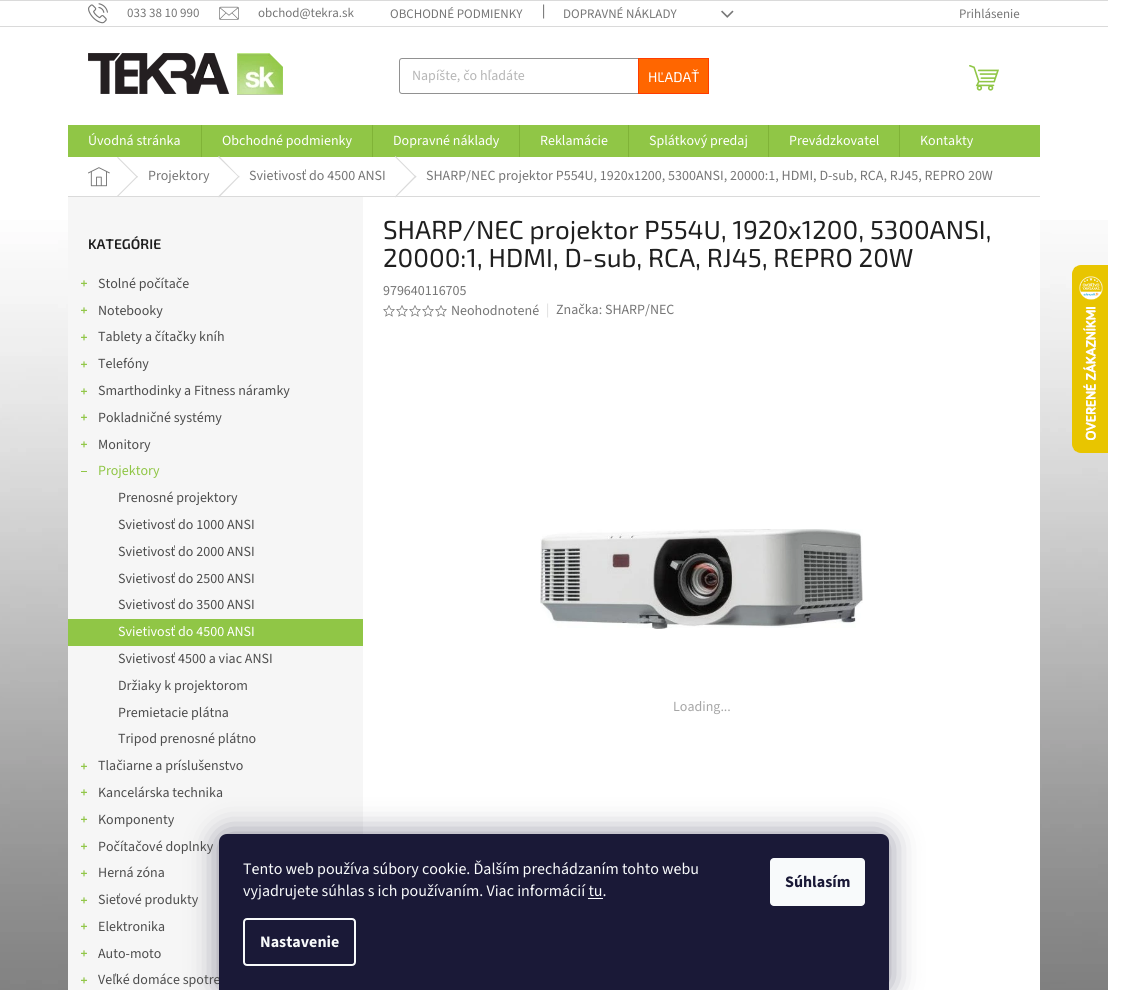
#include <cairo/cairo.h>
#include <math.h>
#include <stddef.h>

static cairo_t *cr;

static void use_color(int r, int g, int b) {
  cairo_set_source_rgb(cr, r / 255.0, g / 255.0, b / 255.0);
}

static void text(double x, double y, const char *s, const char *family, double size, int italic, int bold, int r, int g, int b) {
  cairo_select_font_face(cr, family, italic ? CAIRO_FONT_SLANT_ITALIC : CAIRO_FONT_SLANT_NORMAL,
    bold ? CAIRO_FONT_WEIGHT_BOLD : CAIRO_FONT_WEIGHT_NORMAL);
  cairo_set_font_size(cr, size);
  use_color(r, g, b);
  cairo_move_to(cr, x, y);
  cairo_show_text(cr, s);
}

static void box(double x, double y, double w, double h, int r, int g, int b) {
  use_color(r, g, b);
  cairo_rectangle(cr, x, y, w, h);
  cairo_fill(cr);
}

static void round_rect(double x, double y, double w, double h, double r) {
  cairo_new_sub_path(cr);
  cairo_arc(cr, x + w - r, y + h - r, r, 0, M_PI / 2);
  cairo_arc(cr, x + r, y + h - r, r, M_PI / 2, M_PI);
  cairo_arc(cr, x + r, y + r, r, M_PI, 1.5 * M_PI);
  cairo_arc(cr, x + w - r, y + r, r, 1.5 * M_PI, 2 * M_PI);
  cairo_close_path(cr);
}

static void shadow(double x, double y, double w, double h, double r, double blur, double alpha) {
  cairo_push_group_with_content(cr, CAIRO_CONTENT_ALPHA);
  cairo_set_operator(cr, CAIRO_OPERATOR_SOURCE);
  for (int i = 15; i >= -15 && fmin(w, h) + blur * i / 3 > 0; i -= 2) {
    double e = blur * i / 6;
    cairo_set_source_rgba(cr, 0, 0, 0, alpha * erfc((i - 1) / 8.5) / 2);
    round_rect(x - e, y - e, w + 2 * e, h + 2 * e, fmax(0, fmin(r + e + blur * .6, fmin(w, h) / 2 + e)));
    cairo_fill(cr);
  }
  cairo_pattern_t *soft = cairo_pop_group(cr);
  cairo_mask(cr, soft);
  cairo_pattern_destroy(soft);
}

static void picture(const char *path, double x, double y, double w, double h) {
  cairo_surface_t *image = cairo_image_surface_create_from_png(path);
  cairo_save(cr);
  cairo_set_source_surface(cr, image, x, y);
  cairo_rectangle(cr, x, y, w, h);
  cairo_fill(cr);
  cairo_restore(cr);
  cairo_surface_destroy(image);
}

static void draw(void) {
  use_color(255, 255, 255);
  cairo_paint(cr);
  picture("img_01.png", 0, 220, 1108, 770);
  box(0, 0, 1108, 1, 218, 218, 218);
  box(0, 26, 1108, 1, 218, 218, 218);
  picture("img_02.png", 88, 3, 20, 21);
  picture("img_03.png", 219, 6, 20, 14);
  picture("img_04.png", 721, 10, 13, 8);
  picture("img_05.png", 88, 53, 195, 42);
  round_rect(399.5, 58.5, 309, 35, 2.5);
  use_color(145, 145, 145);
  cairo_set_line_width(cr, 1);
  cairo_stroke(cr);
  use_color(255, 102, 0);
  cairo_rectangle(cr, 638.5, 58.5, 70, 35);
  cairo_fill_preserve(cr);
  use_color(255, 60, 0);
  cairo_stroke(cr);
  picture("img_06.png", 969, 65, 30, 26);
  box(68, 125, 972, 32, 144, 198, 70);
  box(201, 125, 1, 32, 128, 179, 55);
  box(372, 125, 1, 32, 128, 179, 55);
  box(519, 125, 1, 32, 128, 179, 55);
  box(628, 125, 1, 32, 128, 179, 55);
  box(768, 125, 1, 32, 128, 179, 55);
  box(899, 125, 1, 32, 128, 179, 55);
  box(68, 196, 972, 1, 218, 218, 218);
  picture("img_07.png", 88, 167, 22, 20);
  cairo_new_path(cr);
  cairo_move_to(cr, 117, 157.5);
  cairo_line_to(cr, 118, 157);
  cairo_line_to(cr, 138, 177);
  cairo_line_to(cr, 137, 177.5);
  cairo_close_path(cr);
  cairo_fill(cr);
  cairo_new_path(cr);
  cairo_move_to(cr, 137, 176);
  cairo_line_to(cr, 138, 176.5);
  cairo_line_to(cr, 118, 196.5);
  cairo_line_to(cr, 117, 196);
  cairo_close_path(cr);
  cairo_fill(cr);
  cairo_new_path(cr);
  cairo_move_to(cr, 218, 157);
  cairo_line_to(cr, 219, 156);
  cairo_line_to(cr, 239.5, 177);
  cairo_line_to(cr, 239, 177.5);
  cairo_close_path(cr);
  cairo_fill(cr);
  box(68, 197, 295, 793, 246, 246, 246);
  use_color(218, 218, 218);
  cairo_new_path(cr);
  cairo_move_to(cr, 239, 175.5);
  cairo_line_to(cr, 239.5, 176.5);
  cairo_line_to(cr, 219, 197.5);
  cairo_line_to(cr, 218, 196.5);
  cairo_close_path(cr);
  cairo_fill(cr);
  cairo_new_path(cr);
  cairo_move_to(cr, 395, 157);
  cairo_line_to(cr, 395.5, 156);
  cairo_line_to(cr, 416.5, 177);
  cairo_line_to(cr, 415.5, 177.5);
  cairo_close_path(cr);
  cairo_fill(cr);
  cairo_new_path(cr);
  cairo_move_to(cr, 415.5, 175.5);
  cairo_line_to(cr, 416.5, 176.5);
  cairo_line_to(cr, 395.5, 197.5);
  cairo_line_to(cr, 395, 196.5);
  cairo_close_path(cr);
  cairo_fill(cr);
  box(363, 220, 677, 770, 255, 255, 255);
  picture("img_08.png", 81, 280, 6, 7);
  picture("img_08.png", 81, 307, 6, 7);
  picture("img_08.png", 81, 334, 6, 7);
  picture("img_08.png", 81, 361, 6, 7);
  picture("img_08.png", 81, 388, 6, 7);
  picture("img_08.png", 81, 414, 6, 7);
  picture("img_08.png", 81, 441, 6, 7);
  box(81, 471, 6, 1, 144, 198, 70);
  box(68, 619, 295, 27, 144, 198, 70);
  picture("img_08.png", 81, 763, 6, 7);
  picture("img_08.png", 81, 789, 6, 7);
  picture("img_08.png", 81, 816, 6, 7);
  picture("img_08.png", 81, 843, 6, 7);
  picture("img_08.png", 81, 870, 6, 7);
  picture("img_08.png", 81, 897, 6, 7);
  picture("img_08.png", 81, 923, 6, 7);
  picture("img_08.png", 81, 950, 6, 7);
  picture("img_08.png", 81, 977, 6, 7);
  picture("img_09.png", 383, 305, 12, 12);
  picture("img_09.png", 396, 305, 12, 12);
  picture("img_09.png", 409, 305, 12, 12);
  picture("img_09.png", 422, 305, 12, 12);
  picture("img_09.png", 435, 305, 12, 12);
  picture("img_10.png", 540, 529, 323, 100);
  picture("img_11.png", 1072, 265, 36, 188);
  use_color(27, 25, 57);
  shadow(219, 834, 670, 156, 8, 15, 0.5);
  text(127, 17, "033 38 10 990", "Source Sans 3", 13, 0, 0, 118, 118, 118);
  text(258, 17, "obchod@tekra.sk", "Source Sans 3", 13, 0, 0, 118, 118, 118);
  text(390, 18, "OBCHODNÉ PODMIENKY", "Source Sans 3", 13, 0, 0, 118, 118, 118);
  text(542, 15, "|", "Source Sans 3", 14, 0, 0, 77, 77, 77);
  text(563, 18, "DOPRAVNÉ NÁKLADY", "Source Sans 3", 13, 0, 0, 118, 118, 118);
  text(959, 18, "Prihlásenie", "Source Sans 3", 13, 0, 0, 118, 118, 118);
  text(412, 80, "Napíšte, čo hľadáte", "Source Sans 3", 14, 0, 0, 182, 182, 182);
  text(648, 82, "HĽADAŤ", "Exo 2", 14, 0, 0, 255, 255, 255);
  text(88, 145, "Úvodná stránka", "Source Sans 3", 14, 0, 0, 255, 255, 255);
  text(222, 145, "Obchodné podmienky", "Source Sans 3", 14, 0, 0, 255, 255, 255);
  text(393, 145, "Dopravné náklady", "Source Sans 3", 14, 0, 0, 255, 255, 255);
  text(540, 145, "Reklamácie", "Source Sans 3", 14, 0, 0, 255, 255, 255);
  text(649, 145, "Splátkový predaj", "Source Sans 3", 14, 0, 0, 255, 255, 255);
  text(789, 145, "Prevádzkovatel", "Source Sans 3", 14, 0, 0, 255, 255, 255);
  text(920, 145, "Kontakty", "Source Sans 3", 14, 0, 0, 255, 255, 255);
  text(148, 180, "Projektory", "Source Sans 3", 14, 0, 0, 118, 118, 118);
  text(249, 180, "Svietivosť do 4500 ANSI", "Source Sans 3", 14, 0, 0, 118, 118, 118);
  text(426, 180, "SHARP/NEC projektor P554U, 1920x1200, 5300ANSI, 20000:1, HDMI, D-sub, RCA, RJ45, REPRO 20W", "Source Sans 3", 14, 0, 0, 118, 118, 118);
  text(88, 249, "KATEGÓRIE", "Exo 2 SemiBold", 14, 0, 0, 31, 31, 31);
  text(98, 288, "Stolné počítače", "Source Sans 3", 14, 0, 0, 77, 77, 77);
  text(98, 315, "Notebooky", "Source Sans 3", 14, 0, 0, 77, 77, 77);
  text(98, 341, "Tablety a čítačky kníh", "Source Sans 3", 14, 0, 0, 77, 77, 77);
  text(98, 368, "Telefóny", "Source Sans 3", 14, 0, 0, 77, 77, 77);
  text(98, 395, "Smarthodinky a Fitness náramky", "Source Sans 3", 14, 0, 0, 77, 77, 77);
  text(98, 422, "Pokladničné systémy", "Source Sans 3", 14, 0, 0, 77, 77, 77);
  text(98, 449, "Monitory", "Source Sans 3", 14, 0, 0, 77, 77, 77);
  text(98, 475, "Projektory", "Source Sans 3", 14, 0, 0, 144, 198, 70);
  text(118, 502, "Prenosné projektory", "Source Sans 3", 14, 0, 0, 77, 77, 77);
  text(118, 529, "Svietivosť do 1000 ANSI", "Source Sans 3", 14, 0, 0, 77, 77, 77);
  text(118, 556, "Svietivosť do 2000 ANSI", "Source Sans 3", 14, 0, 0, 77, 77, 77);
  text(118, 583, "Svietivosť do 2500 ANSI", "Source Sans 3", 14, 0, 0, 77, 77, 77);
  text(118, 609, "Svietivosť do 3500 ANSI", "Source Sans 3", 14, 0, 0, 77, 77, 77);
  text(118, 636, "Svietivosť do 4500 ANSI", "Source Sans 3", 14, 0, 0, 255, 255, 255);
  text(118, 663, "Svietivosť 4500 a viac ANSI", "Source Sans 3", 14, 0, 0, 77, 77, 77);
  text(118, 690, "Držiaky k projektorom", "Source Sans 3", 14, 0, 0, 77, 77, 77);
  text(118, 717, "Premietacie plátna", "Source Sans 3", 14, 0, 0, 77, 77, 77);
  text(118, 743, "Tripod prenosné plátno", "Source Sans 3", 14, 0, 0, 77, 77, 77);
  text(98, 770, "Tlačiarne a príslušenstvo", "Source Sans 3", 14, 0, 0, 77, 77, 77);
  text(98, 797, "Kancelárska technika", "Source Sans 3", 14, 0, 0, 77, 77, 77);
  text(98, 824, "Komponenty", "Source Sans 3", 14, 0, 0, 77, 77, 77);
  text(98, 851, "Počítačové doplnky", "Source Sans 3", 14, 0, 0, 77, 77, 77);
  text(98, 877, "Herná zóna", "Source Sans 3", 14, 0, 0, 77, 77, 77);
  text(98, 904, "Sieťové produkty", "Source Sans 3", 14, 0, 0, 77, 77, 77);
  text(98, 931, "Elektronika", "Source Sans 3", 14, 0, 0, 77, 77, 77);
  text(98, 958, "Auto-moto", "Source Sans 3", 14, 0, 0, 77, 77, 77);
  text(98, 984, "Veľké domáce spotre", "Source Sans 3", 14, 0, 0, 77, 77, 77);
  text(383, 239, "SHARP/NEC projektor P554U, 1920x1200, 5300ANSI,", "Exo 2", 26, 0, 0, 31, 31, 31);
  text(383, 267, "20000:1, HDMI, D-sub, RCA, RJ45, REPRO 20W", "Exo 2", 26, 0, 0, 31, 31, 31);
  text(383, 295, "979640116705", "Source Sans 3", 14, 0, 0, 118, 118, 118);
  text(451, 315, "Neohodnotené", "Source Sans 3", 14, 0, 0, 118, 118, 118);
  text(546, 314, "|", "Source Sans 3", 14, 0, 0, 218, 218, 218);
  text(556, 314, "Značka: SHARP/NEC", "Source Sans 3", 14, 0, 0, 118, 118, 118);
  text(673, 711, "Loading...", "Source Sans 3", 14, 0, 0, 166, 166, 166);
  use_color(26, 25, 55);
  cairo_new_path(cr);
  cairo_move_to(cr, 227, 834);
  cairo_line_to(cr, 881, 834);
  cairo_curve_to(cr, 885.5, 834, 889, 837.5, 889, 842);
  cairo_line_to(cr, 889, 990);
  cairo_line_to(cr, 219, 990);
  cairo_line_to(cr, 219, 842);
  cairo_curve_to(cr, 219, 837.5, 222.5, 834, 227, 834);
  cairo_close_path(cr);
  cairo_fill(cr);
  text(243, 874, "Tento web používa súbory cookie. Ďalším prechádzaním tohto webu", "Source Sans 3", 16, 0, 0, 248, 250, 251);
  text(243, 896, "vyjadrujete súhlas s ich používaním. Viac informácií tu.", "Source Sans 3", 16, 0, 0, 248, 250, 251);
  box(588, 898, 15, 1, 248, 250, 251);
  round_rect(244, 919, 111, 46, 3);
  cairo_set_line_width(cr, 2);
  cairo_stroke(cr);
  text(260, 947, "Nastavenie", "Source Sans 3", 16, 0, 1, 248, 250, 251);
  round_rect(770, 858, 95, 48, 4);
  cairo_fill(cr);
  text(785, 887, "Súhlasím", "Source Sans 3", 16, 0, 1, 26, 25, 55);
}

int main(void) {
  cairo_surface_t *surface = cairo_image_surface_create(CAIRO_FORMAT_RGB24, 1123, 990);
  cr = cairo_create(surface);
  cairo_font_options_t *options = cairo_font_options_create();
  cairo_font_options_set_hint_metrics(options, CAIRO_HINT_METRICS_OFF);
  cairo_font_options_set_hint_style(options, CAIRO_HINT_STYLE_NONE);
  cairo_set_font_options(cr, options);
  cairo_set_miter_limit(cr, 4);
  draw();
  cairo_surface_write_to_png(surface, "out.png");
  cairo_font_options_destroy(options);
  cairo_destroy(cr);
  cairo_surface_destroy(surface);
  return 0;
}
